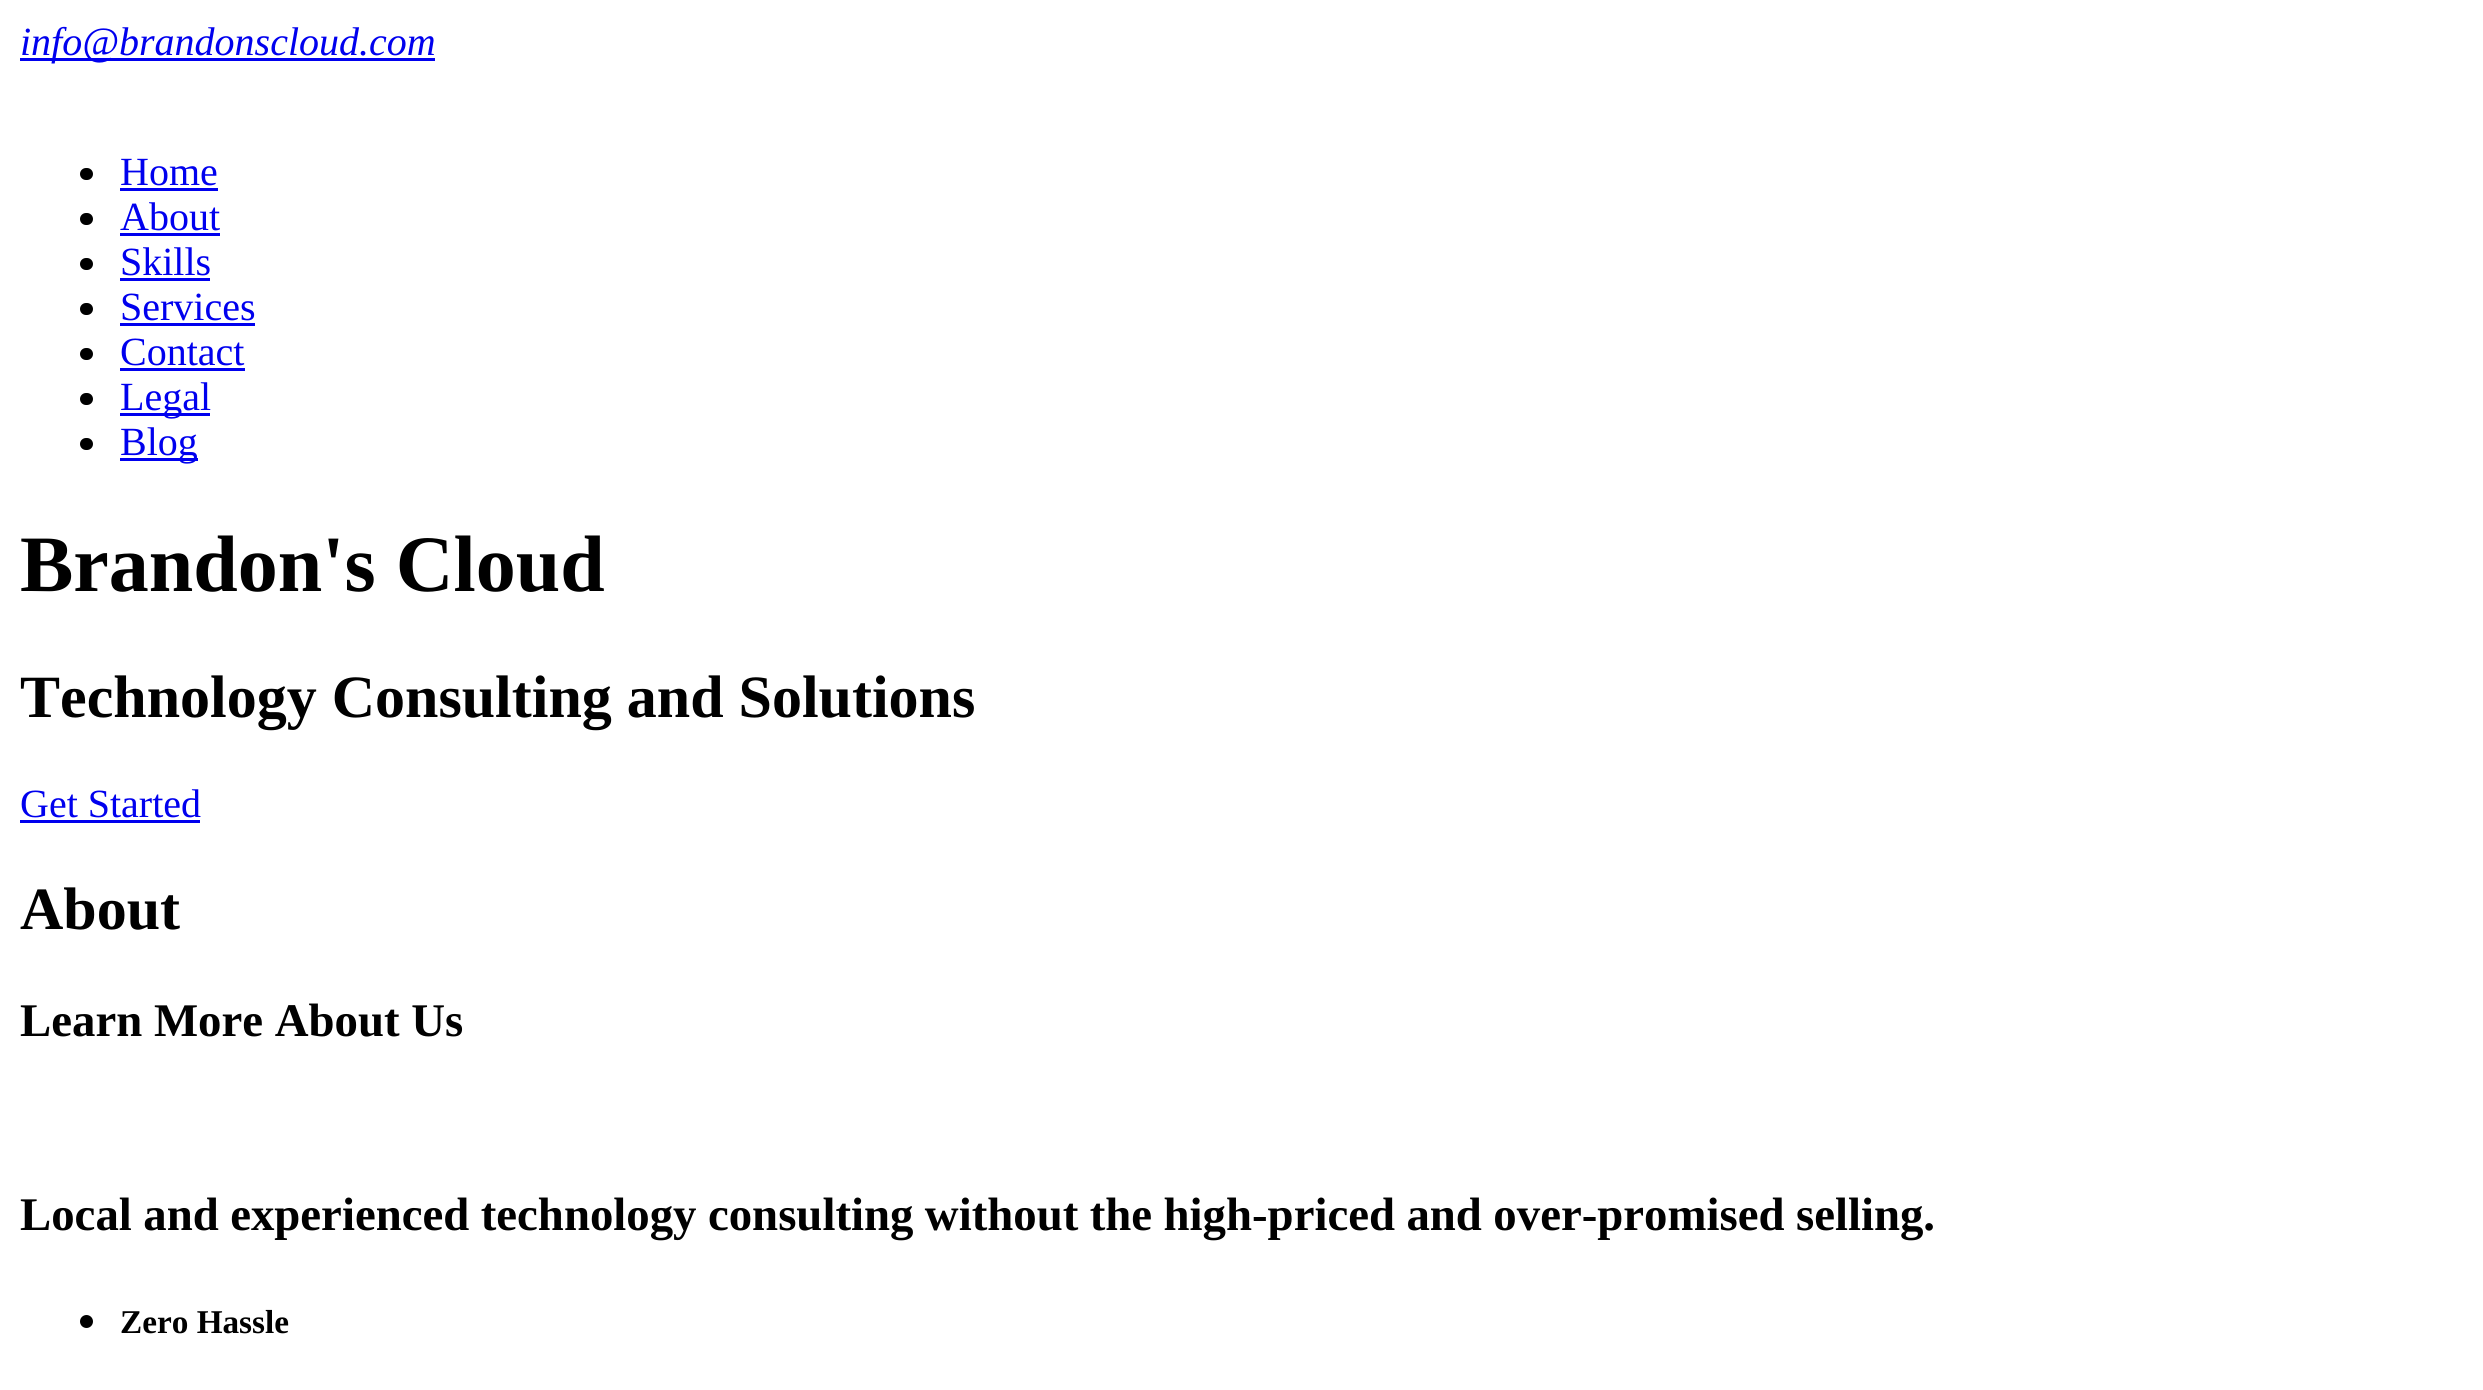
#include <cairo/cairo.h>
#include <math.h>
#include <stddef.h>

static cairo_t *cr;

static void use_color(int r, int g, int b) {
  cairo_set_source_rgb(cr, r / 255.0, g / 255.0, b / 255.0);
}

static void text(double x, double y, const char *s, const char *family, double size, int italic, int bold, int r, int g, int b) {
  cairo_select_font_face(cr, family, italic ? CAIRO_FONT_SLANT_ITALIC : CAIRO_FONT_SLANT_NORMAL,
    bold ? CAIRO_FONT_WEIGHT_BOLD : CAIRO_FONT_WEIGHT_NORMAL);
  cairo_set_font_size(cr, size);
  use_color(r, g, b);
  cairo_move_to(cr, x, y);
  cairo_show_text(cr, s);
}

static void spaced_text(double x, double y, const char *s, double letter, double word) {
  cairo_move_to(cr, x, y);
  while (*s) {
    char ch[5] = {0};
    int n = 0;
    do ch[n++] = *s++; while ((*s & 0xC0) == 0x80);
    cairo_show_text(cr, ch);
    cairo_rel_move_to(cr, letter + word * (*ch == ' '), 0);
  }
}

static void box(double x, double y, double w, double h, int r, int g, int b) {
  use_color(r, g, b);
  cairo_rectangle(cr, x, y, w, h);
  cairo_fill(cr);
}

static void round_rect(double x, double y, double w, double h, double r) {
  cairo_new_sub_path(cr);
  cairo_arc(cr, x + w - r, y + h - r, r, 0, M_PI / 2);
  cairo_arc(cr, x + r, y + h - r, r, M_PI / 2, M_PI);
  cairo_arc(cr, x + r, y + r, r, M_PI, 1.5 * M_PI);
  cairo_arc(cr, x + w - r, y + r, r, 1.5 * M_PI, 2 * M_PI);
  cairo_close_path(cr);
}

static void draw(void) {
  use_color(255, 255, 255);
  cairo_paint(cr);
  box(20, 58, 415, 3, 0, 0, 238);
  use_color(0, 0, 0);
  round_rect(80, 168, 13, 12, 6);
  cairo_fill(cr);
  box(120, 188, 98, 3, 0, 0, 238);
  use_color(0, 0, 0);
  round_rect(80, 213, 13, 12, 6);
  cairo_fill(cr);
  box(120, 233, 100, 3, 0, 0, 238);
  use_color(0, 0, 0);
  round_rect(80, 258, 13, 12, 6);
  cairo_fill(cr);
  box(120, 278, 90, 3, 0, 0, 238);
  use_color(0, 0, 0);
  round_rect(80, 303, 13, 12, 6);
  cairo_fill(cr);
  box(120, 323, 135, 3, 0, 0, 238);
  use_color(0, 0, 0);
  round_rect(80, 348, 13, 12, 6);
  cairo_fill(cr);
  box(120, 368, 125, 3, 0, 0, 238);
  use_color(0, 0, 0);
  round_rect(80, 393, 13, 12, 6);
  cairo_fill(cr);
  box(120, 413, 90, 3, 0, 0, 238);
  use_color(0, 0, 0);
  round_rect(80, 438, 13, 12, 6);
  cairo_fill(cr);
  box(120, 458, 78, 3, 0, 0, 238);
  box(20, 820, 180, 3, 0, 0, 238);
  use_color(0, 0, 0);
  cairo_arc(cr, 86.5, 1321.5, 6.5, 0, 2 * M_PI);
  cairo_fill(cr);
  text(20, 55, "info@brandonscloud.com", "Liberation Serif", 40, 1, 0, 0, 0, 238);
  text(120, 185, "Home", "Liberation Serif", 40, 0, 0, 0, 0, 238);
  text(120, 230, "About", "Liberation Serif", 40, 0, 0, 0, 0, 238);
  text(120, 275, "Skills", "Liberation Serif", 40, 0, 0, 0, 0, 238);
  text(120, 320, "Services", "Liberation Serif", 40, 0, 0, 0, 0, 238);
  text(120, 365, "Contact", "Liberation Serif", 40, 0, 0, 0, 0, 238);
  text(120, 410, "Legal", "Liberation Serif", 40, 0, 0, 0, 0, 238);
  text(120, 455, "Blog", "Liberation Serif", 40, 0, 0, 0, 0, 238);
  text(20, 591, "Brandon's Cloud", "Liberation Serif", 80, 0, 1, 0, 0, 0);
  text(20, 717, "Technology Consulting and Solutions", "Liberation Serif", 60, 0, 1, 0, 0, 0);
  text(20, 817, "Get Started", "Liberation Serif", 40, 0, 0, 0, 0, 238);
  text(20, 929, "About", "Liberation Serif", 60, 0, 1, 0, 0, 0);
  text(20, 1036, "Learn More About Us", "Liberation Serif", 46.8, 0, 1, 0, 0, 0);
  spaced_text(20, 1230, "Local and experienced technology consulting without the high-priced and over-promised selling.", 0, -0.25);
  text(120, 1333, "Zero Hassle", "Liberation Serif", 33.25, 0, 1, 0, 0, 0);
}

int main(void) {
  cairo_surface_t *surface = cairo_image_surface_create(CAIRO_FORMAT_RGB24, 2483, 1390);
  cr = cairo_create(surface);
  cairo_font_options_t *options = cairo_font_options_create();
  cairo_font_options_set_hint_metrics(options, CAIRO_HINT_METRICS_OFF);
  cairo_font_options_set_hint_style(options, CAIRO_HINT_STYLE_NONE);
  cairo_set_font_options(cr, options);
  cairo_set_miter_limit(cr, 4);
  draw();
  cairo_surface_write_to_png(surface, "out.png");
  cairo_font_options_destroy(options);
  cairo_destroy(cr);
  cairo_surface_destroy(surface);
  return 0;
}
